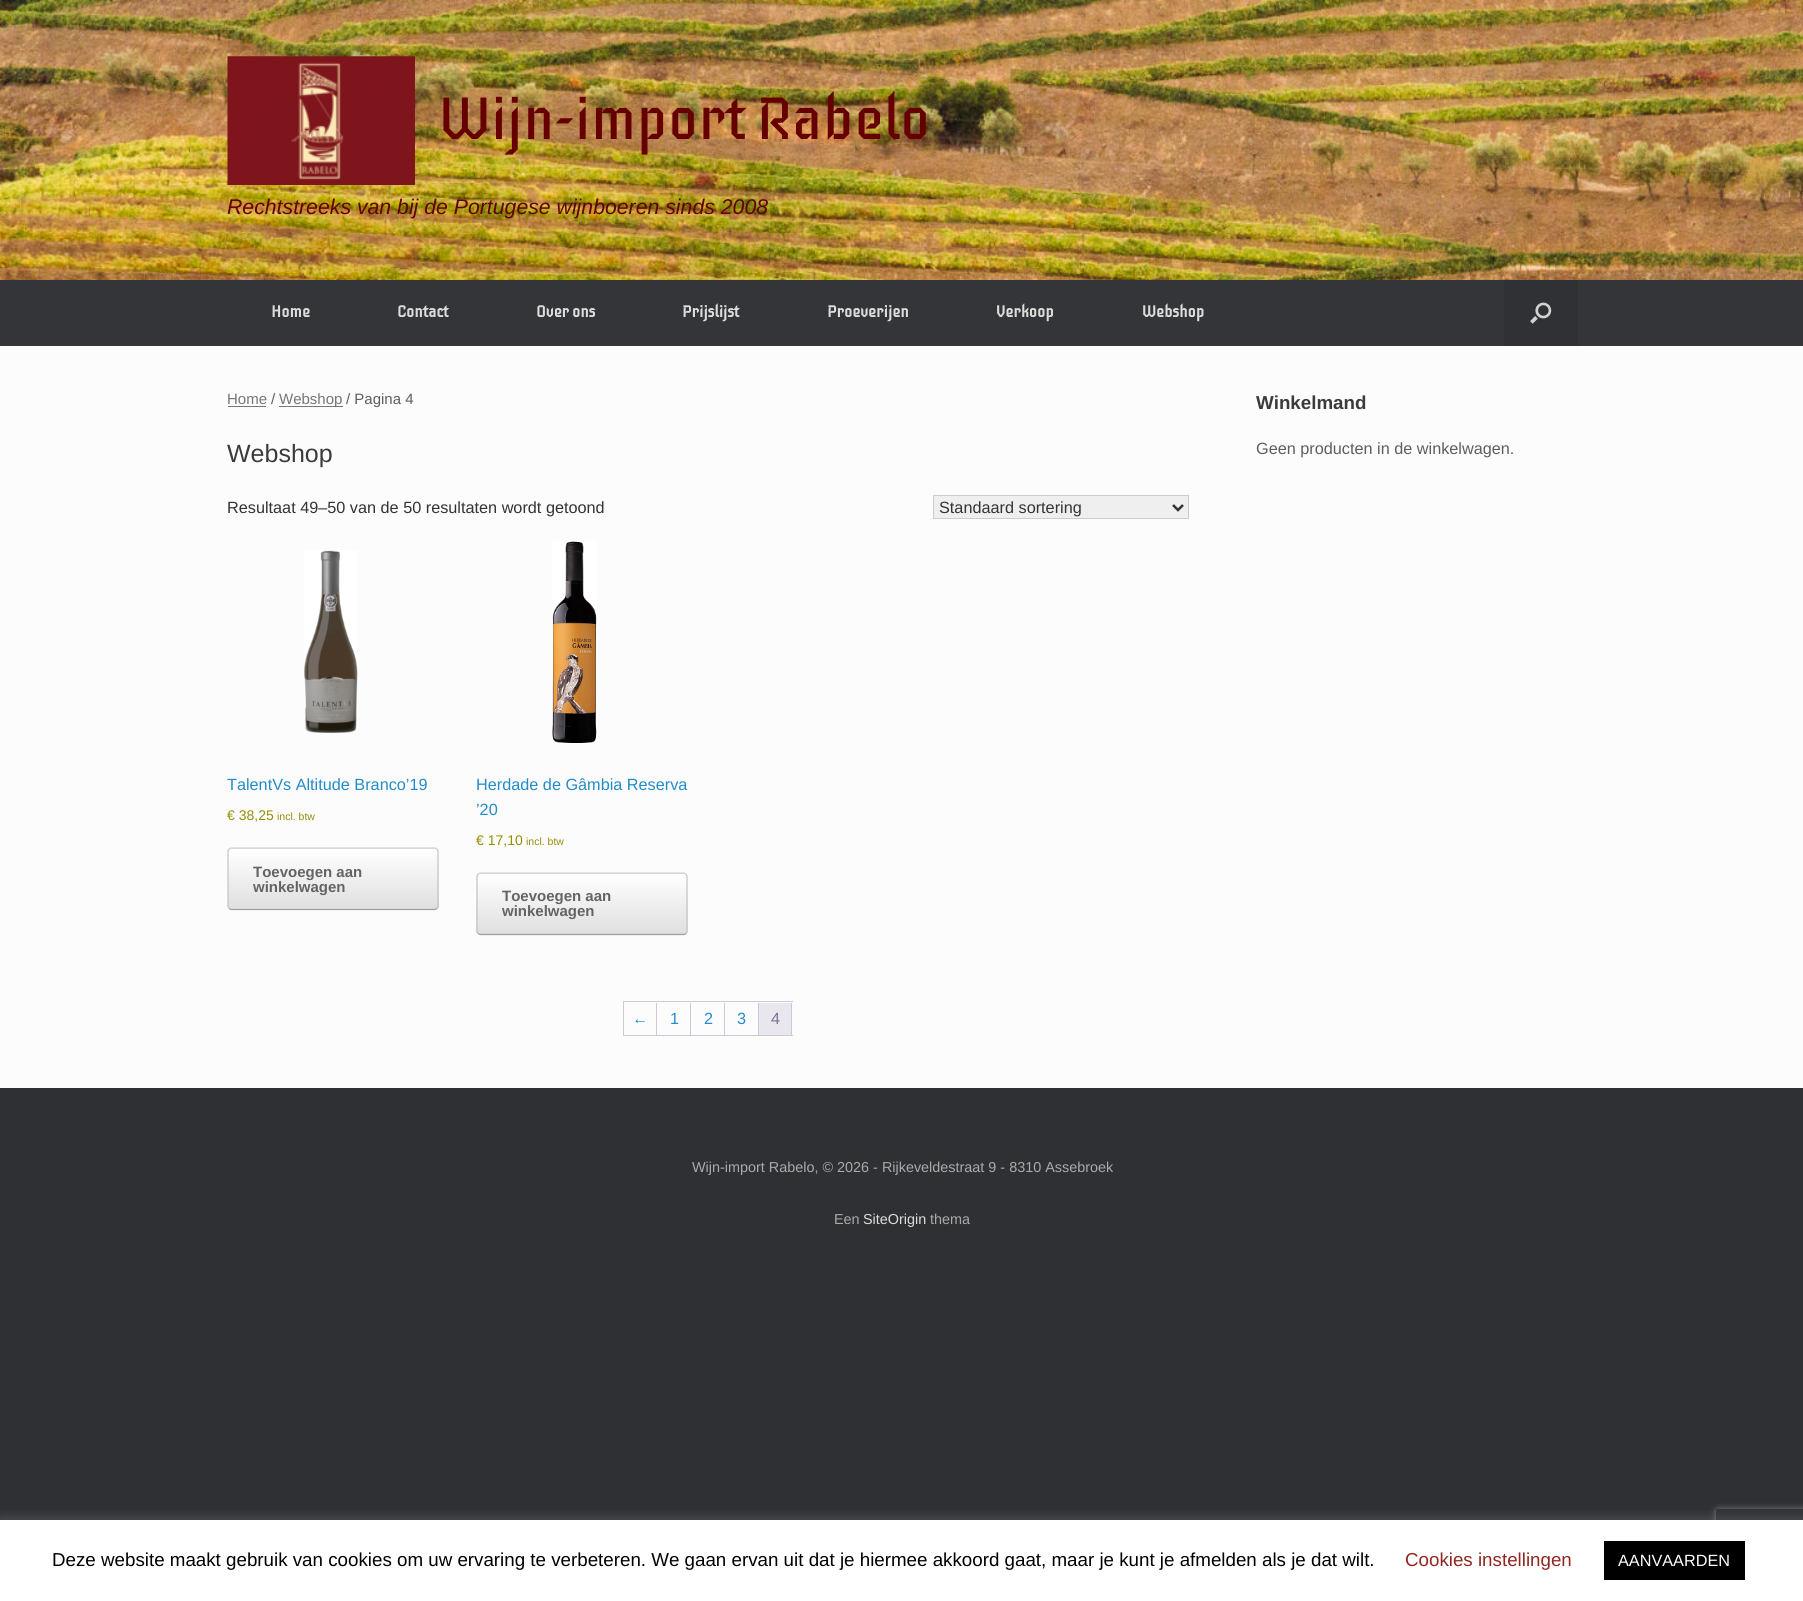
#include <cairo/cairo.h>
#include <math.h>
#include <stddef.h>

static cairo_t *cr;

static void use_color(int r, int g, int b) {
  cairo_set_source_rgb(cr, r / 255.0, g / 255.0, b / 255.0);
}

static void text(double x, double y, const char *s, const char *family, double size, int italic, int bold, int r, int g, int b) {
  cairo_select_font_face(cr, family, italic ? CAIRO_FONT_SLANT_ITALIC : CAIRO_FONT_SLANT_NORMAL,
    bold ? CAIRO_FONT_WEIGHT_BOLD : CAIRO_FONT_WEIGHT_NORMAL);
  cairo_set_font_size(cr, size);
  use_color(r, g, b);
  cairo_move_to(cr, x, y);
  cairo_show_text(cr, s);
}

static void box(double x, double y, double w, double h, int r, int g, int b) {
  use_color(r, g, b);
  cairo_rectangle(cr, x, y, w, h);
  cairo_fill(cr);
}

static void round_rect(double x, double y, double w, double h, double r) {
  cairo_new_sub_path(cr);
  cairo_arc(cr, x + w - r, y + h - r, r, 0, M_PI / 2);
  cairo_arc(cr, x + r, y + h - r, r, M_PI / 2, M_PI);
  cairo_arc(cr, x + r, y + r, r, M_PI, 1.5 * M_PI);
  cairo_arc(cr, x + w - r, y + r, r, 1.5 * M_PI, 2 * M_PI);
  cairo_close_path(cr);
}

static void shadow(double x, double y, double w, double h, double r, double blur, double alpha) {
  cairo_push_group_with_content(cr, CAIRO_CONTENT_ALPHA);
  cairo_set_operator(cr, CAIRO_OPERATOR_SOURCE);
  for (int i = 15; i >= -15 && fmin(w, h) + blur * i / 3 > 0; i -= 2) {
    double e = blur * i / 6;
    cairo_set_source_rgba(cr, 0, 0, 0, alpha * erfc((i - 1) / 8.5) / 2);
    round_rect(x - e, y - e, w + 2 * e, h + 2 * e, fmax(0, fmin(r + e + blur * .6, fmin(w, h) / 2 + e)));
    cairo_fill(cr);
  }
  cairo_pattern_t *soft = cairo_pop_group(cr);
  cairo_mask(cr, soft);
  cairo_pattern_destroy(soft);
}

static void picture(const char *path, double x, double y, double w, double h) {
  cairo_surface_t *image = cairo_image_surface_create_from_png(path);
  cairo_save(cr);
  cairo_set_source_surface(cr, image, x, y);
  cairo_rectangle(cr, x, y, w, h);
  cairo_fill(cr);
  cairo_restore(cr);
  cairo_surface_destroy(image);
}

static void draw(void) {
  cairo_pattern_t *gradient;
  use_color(47, 48, 51);
  cairo_paint(cr);
  picture("img_01.png", 0, 0, 1803, 280);
  picture("img_02.png", 227, 56, 188, 129);
  box(0, 280, 1803, 66, 52, 53, 56);
  box(1504, 280, 74, 66, 48, 49, 52);
  picture("img_03.png", 1530, 302, 22, 22);
  box(0, 346, 1803, 742, 252, 252, 252);
  box(228, 406, 38, 1, 118, 118, 118);
  box(279, 406, 64, 1, 118, 118, 118);
  use_color(239, 239, 239);
  cairo_rectangle(cr, 933.5, 495.5, 255, 23);
  cairo_fill_preserve(cr);
  use_color(204, 204, 204);
  cairo_set_line_width(cr, 1);
  cairo_stroke(cr);
  cairo_new_path(cr);
  cairo_move_to(cr, 1173, 505);
  cairo_line_to(cr, 1178, 510);
  cairo_line_to(cr, 1183, 505);
  use_color(51, 51, 51);
  cairo_set_line_width(cr, 2.5);
  cairo_stroke(cr);
  picture("img_04.png", 304, 550, 54, 183);
  cairo_save(cr);
  round_rect(228, 848, 211, 62, 4);
  cairo_clip(cr);
  gradient = cairo_pattern_create_linear(229, 849, 229, 789);
  cairo_pattern_add_color_stop_rgba(gradient, 0, 0.875, 0.875, 0.875, 1);
  cairo_pattern_add_color_stop_rgba(gradient, 1, 1, 1, 1, 1);
  cairo_set_source(cr, gradient);
  cairo_pattern_destroy(gradient);
  cairo_rectangle(cr, 228, 848, 211, 1);
  cairo_fill(cr);
  gradient = cairo_pattern_create_linear(229, 909, 229, 849);
  cairo_pattern_add_color_stop_rgba(gradient, 0, 0.875, 0.875, 0.875, 1);
  cairo_pattern_add_color_stop_rgba(gradient, 1, 1, 1, 1, 1);
  cairo_set_source(cr, gradient);
  cairo_pattern_destroy(gradient);
  cairo_rectangle(cr, 228, 849, 211, 60);
  cairo_fill(cr);
  gradient = cairo_pattern_create_linear(229, 969, 229, 909);
  cairo_pattern_add_color_stop_rgba(gradient, 0, 0.875, 0.875, 0.875, 1);
  cairo_pattern_add_color_stop_rgba(gradient, 1, 1, 1, 1, 1);
  cairo_set_source(cr, gradient);
  cairo_pattern_destroy(gradient);
  cairo_rectangle(cr, 228, 909, 211, 1);
  cairo_fill(cr);
  cairo_restore(cr);
  cairo_new_path(cr);
  cairo_move_to(cr, 229, 849);
  cairo_line_to(cr, 231, 848);
  cairo_line_to(cr, 435, 848);
  cairo_line_to(cr, 437, 849);
  use_color(210, 210, 210);
  cairo_set_line_width(cr, 1.2);
  cairo_stroke(cr);
  cairo_new_path(cr);
  cairo_move_to(cr, 437, 849);
  cairo_line_to(cr, 438, 851);
  cairo_line_to(cr, 438, 906.5);
  cairo_line_to(cr, 437, 908.5);
  use_color(195, 195, 195);
  cairo_stroke(cr);
  cairo_new_path(cr);
  cairo_move_to(cr, 437, 908.5);
  cairo_line_to(cr, 435, 909.5);
  cairo_line_to(cr, 231, 909.5);
  cairo_line_to(cr, 229, 908.5);
  use_color(159, 159, 159);
  cairo_stroke(cr);
  cairo_new_path(cr);
  cairo_move_to(cr, 229, 908.5);
  cairo_line_to(cr, 228, 906.5);
  cairo_line_to(cr, 228, 851);
  cairo_line_to(cr, 229, 849);
  use_color(195, 195, 195);
  cairo_stroke(cr);
  picture("img_05.png", 552, 541, 45, 203);
  cairo_save(cr);
  round_rect(476, 873, 212, 62, 4);
  cairo_clip(cr);
  gradient = cairo_pattern_create_linear(478, 874, 478, 814);
  cairo_pattern_add_color_stop_rgba(gradient, 0, 0.875, 0.875, 0.875, 1);
  cairo_pattern_add_color_stop_rgba(gradient, 1, 1, 1, 1, 1);
  cairo_set_source(cr, gradient);
  cairo_pattern_destroy(gradient);
  cairo_rectangle(cr, 476, 873, 212, 1);
  cairo_fill(cr);
  gradient = cairo_pattern_create_linear(478, 934, 478, 874);
  cairo_pattern_add_color_stop_rgba(gradient, 0, 0.875, 0.875, 0.875, 1);
  cairo_pattern_add_color_stop_rgba(gradient, 1, 1, 1, 1, 1);
  cairo_set_source(cr, gradient);
  cairo_pattern_destroy(gradient);
  cairo_rectangle(cr, 476, 874, 212, 60);
  cairo_fill(cr);
  gradient = cairo_pattern_create_linear(478, 994, 478, 934);
  cairo_pattern_add_color_stop_rgba(gradient, 0, 0.875, 0.875, 0.875, 1);
  cairo_pattern_add_color_stop_rgba(gradient, 1, 1, 1, 1, 1);
  cairo_set_source(cr, gradient);
  cairo_pattern_destroy(gradient);
  cairo_rectangle(cr, 476, 934, 212, 1);
  cairo_fill(cr);
  cairo_restore(cr);
  cairo_new_path(cr);
  cairo_move_to(cr, 478, 874);
  cairo_line_to(cr, 480, 873);
  cairo_line_to(cr, 684, 873);
  cairo_line_to(cr, 686, 874);
  use_color(210, 210, 210);
  cairo_stroke(cr);
  cairo_new_path(cr);
  cairo_move_to(cr, 686, 874);
  cairo_line_to(cr, 687, 876);
  cairo_line_to(cr, 687, 931.5);
  cairo_line_to(cr, 686, 933.5);
  use_color(195, 195, 195);
  cairo_stroke(cr);
  cairo_new_path(cr);
  cairo_move_to(cr, 686, 933.5);
  cairo_line_to(cr, 684, 934.5);
  cairo_line_to(cr, 480, 934.5);
  cairo_line_to(cr, 478, 933.5);
  use_color(159, 159, 159);
  cairo_stroke(cr);
  cairo_new_path(cr);
  cairo_move_to(cr, 478, 933.5);
  cairo_line_to(cr, 477, 931.5);
  cairo_line_to(cr, 477, 876);
  cairo_line_to(cr, 478, 874);
  use_color(195, 195, 195);
  cairo_stroke(cr);
  box(623, 1001, 170, 1, 207, 200, 216);
  box(623, 1035, 170, 1, 207, 200, 216);
  box(623, 1001, 1, 35, 207, 200, 216);
  box(656, 1003, 1, 32, 207, 200, 216);
  box(690, 1003, 1, 32, 207, 200, 216);
  box(724, 1003, 1, 32, 207, 200, 216);
  box(758, 1003, 1, 32, 207, 200, 216);
  box(791, 1003, 1, 32, 207, 200, 216);
  box(759, 1003, 32, 32, 233, 230, 237);
  use_color(172, 171, 171);
  shadow(0, 1519, 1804, 81, 0, 6, 0.3);
  cairo_save(cr);
  cairo_set_fill_rule(cr, CAIRO_FILL_RULE_EVEN_ODD);
  cairo_new_path(cr);
  cairo_move_to(cr, 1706, 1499);
  cairo_line_to(cr, 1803, 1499);
  cairo_line_to(cr, 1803, 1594);
  cairo_line_to(cr, 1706, 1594);
  cairo_close_path(cr);
  cairo_move_to(cr, 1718.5, 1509);
  cairo_line_to(cr, 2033.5, 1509);
  cairo_curve_to(cr, 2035, 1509, 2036, 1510, 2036, 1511.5);
  cairo_line_to(cr, 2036, 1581.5);
  cairo_curve_to(cr, 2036, 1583, 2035, 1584, 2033.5, 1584);
  cairo_line_to(cr, 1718.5, 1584);
  cairo_curve_to(cr, 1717, 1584, 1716, 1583, 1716, 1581.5);
  cairo_line_to(cr, 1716, 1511.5);
  cairo_curve_to(cr, 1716, 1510, 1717, 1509, 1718.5, 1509);
  cairo_close_path(cr);
  cairo_clip(cr);
  use_color(128, 128, 128);
  shadow(1716, 1509, 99, 75, 2.5, 3, 1);
  cairo_restore(cr);
  box(0, 1520, 1803, 81, 255, 255, 255);
  box(1604, 1541, 141, 39, 0, 0, 0);
  text(439, 139, "Wijn-import Rabelo", "Iceberg", 60, 0, 0, 102, 0, 0);
  text(227, 214, "Rechtstreeks van bij de Portugese wijnboeren sinds 2008", "Liberation Sans", 21.25, 1, 0, 102, 0, 0);
  text(271, 317, "Home", "Iceberg", 16.25, 0, 1, 221, 221, 221);
  text(397, 317, "Contact", "Iceberg", 16.25, 0, 1, 221, 221, 221);
  text(536, 317, "Over ons", "Iceberg", 16.25, 0, 1, 221, 221, 221);
  text(682, 317, "Prijslijst", "Iceberg", 16.25, 0, 1, 221, 221, 221);
  text(827, 317, "Proeverijen", "Iceberg", 16.25, 0, 1, 221, 221, 221);
  text(996, 317, "Verkoop", "Iceberg", 16.25, 0, 1, 221, 221, 221);
  text(1142, 317, "Webshop", "Iceberg", 16.25, 0, 1, 221, 221, 221);
  text(227, 404, "Home", "Liberation Sans", 15, 0, 0, 118, 118, 118);
  text(271, 404, "/", "Liberation Sans", 15, 0, 0, 94, 94, 94);
  text(279, 404, "Webshop", "Liberation Sans", 15, 0, 0, 118, 118, 118);
  text(346, 404, "/ Pagina 4", "Liberation Sans", 15, 0, 0, 94, 94, 94);
  text(227, 462, "Webshop", "Liberation Sans", 25, 0, 0, 59, 59, 59);
  text(227, 513, "Resultaat 49–50 van de 50 resultaten wordt getoond", "Liberation Sans", 16.25, 0, 0, 51, 51, 51);
  text(939, 513, "Standaard sortering", "Liberation Sans", 16.25, 0, 0, 51, 51, 51);
  text(227, 790, "TalentVs Altitude Branco’19", "Liberation Sans", 16.25, 0, 0, 36, 140, 200);
  text(227, 820, "€ 38,25", "Liberation Sans", 14, 0, 0, 149, 142, 9);
  text(277, 820, "incl. btw", "Liberation Sans", 10.5, 0, 0, 149, 142, 9);
  text(253, 877, "Toevoegen aan", "Liberation Sans", 15, 0, 1, 100, 100, 100);
  text(253, 892, "winkelwagen", "Liberation Sans", 15, 0, 1, 100, 100, 100);
  text(476, 790, "Herdade de Gâmbia Reserva", "Liberation Sans", 16.25, 0, 0, 36, 140, 200);
  text(476, 815, "’20", "Liberation Sans", 16.25, 0, 0, 36, 140, 200);
  text(476, 845, "€ 17,10", "Liberation Sans", 14, 0, 0, 149, 142, 9);
  text(526, 845, "incl. btw", "Liberation Sans", 10.5, 0, 0, 149, 142, 9);
  text(502, 901, "Toevoegen aan", "Liberation Sans", 15, 0, 1, 100, 100, 100);
  text(502, 916, "winkelwagen", "Liberation Sans", 15, 0, 1, 100, 100, 100);
  text(632, 1024, "←", "Liberation Sans", 16.25, 0, 0, 36, 140, 200);
  text(670, 1024, "1", "Liberation Sans", 16.25, 0, 0, 36, 140, 200);
  text(704, 1024, "2", "Liberation Sans", 16.25, 0, 0, 36, 140, 200);
  text(737, 1024, "3", "Liberation Sans", 16.25, 0, 0, 36, 140, 200);
  text(771, 1024, "4", "Liberation Sans", 16.25, 0, 0, 129, 111, 152);
  text(1256, 409, "Winkelmand", "Liberation Sans", 18.75, 0, 1, 59, 59, 59);
  text(1256, 454, "Geen producten in de winkelwagen.", "Liberation Sans", 16.25, 0, 0, 94, 94, 94);
  text(692, 1172, "Wijn-import Rabelo, © 2026 - Rijkeveldestraat 9 - 8310 Assebroek", "Liberation Sans", 14.4, 0, 0, 170, 170, 170);
  text(834, 1224, "Een", "Liberation Sans", 14.4, 0, 0, 170, 170, 170);
  text(863, 1224, "SiteOrigin", "Liberation Sans", 14.4, 0, 0, 221, 221, 221);
  text(930, 1224, "thema", "Liberation Sans", 14.4, 0, 0, 170, 170, 170);
  text(52, 1566, "Deze website maakt gebruik van cookies om uw ervaring te verbeteren. We gaan ervan uit dat je hiermee akkoord gaat, maar je kunt je afmelden als je dat wilt.", "Liberation Sans", 18.75, 0, 0, 0, 0, 0);
  text(1405, 1566, "Cookies instellingen", "Liberation Sans", 18.75, 0, 0, 145, 39, 33);
  text(1618, 1566, "AANVAARDEN", "Liberation Sans", 16.25, 0, 0, 255, 255, 255);
}

int main(void) {
  cairo_surface_t *surface = cairo_image_surface_create(CAIRO_FORMAT_RGB24, 1803, 1601);
  cr = cairo_create(surface);
  cairo_font_options_t *options = cairo_font_options_create();
  cairo_font_options_set_hint_metrics(options, CAIRO_HINT_METRICS_OFF);
  cairo_font_options_set_hint_style(options, CAIRO_HINT_STYLE_NONE);
  cairo_set_font_options(cr, options);
  cairo_set_miter_limit(cr, 4);
  draw();
  cairo_surface_write_to_png(surface, "out.png");
  cairo_font_options_destroy(options);
  cairo_destroy(cr);
  cairo_surface_destroy(surface);
  return 0;
}
